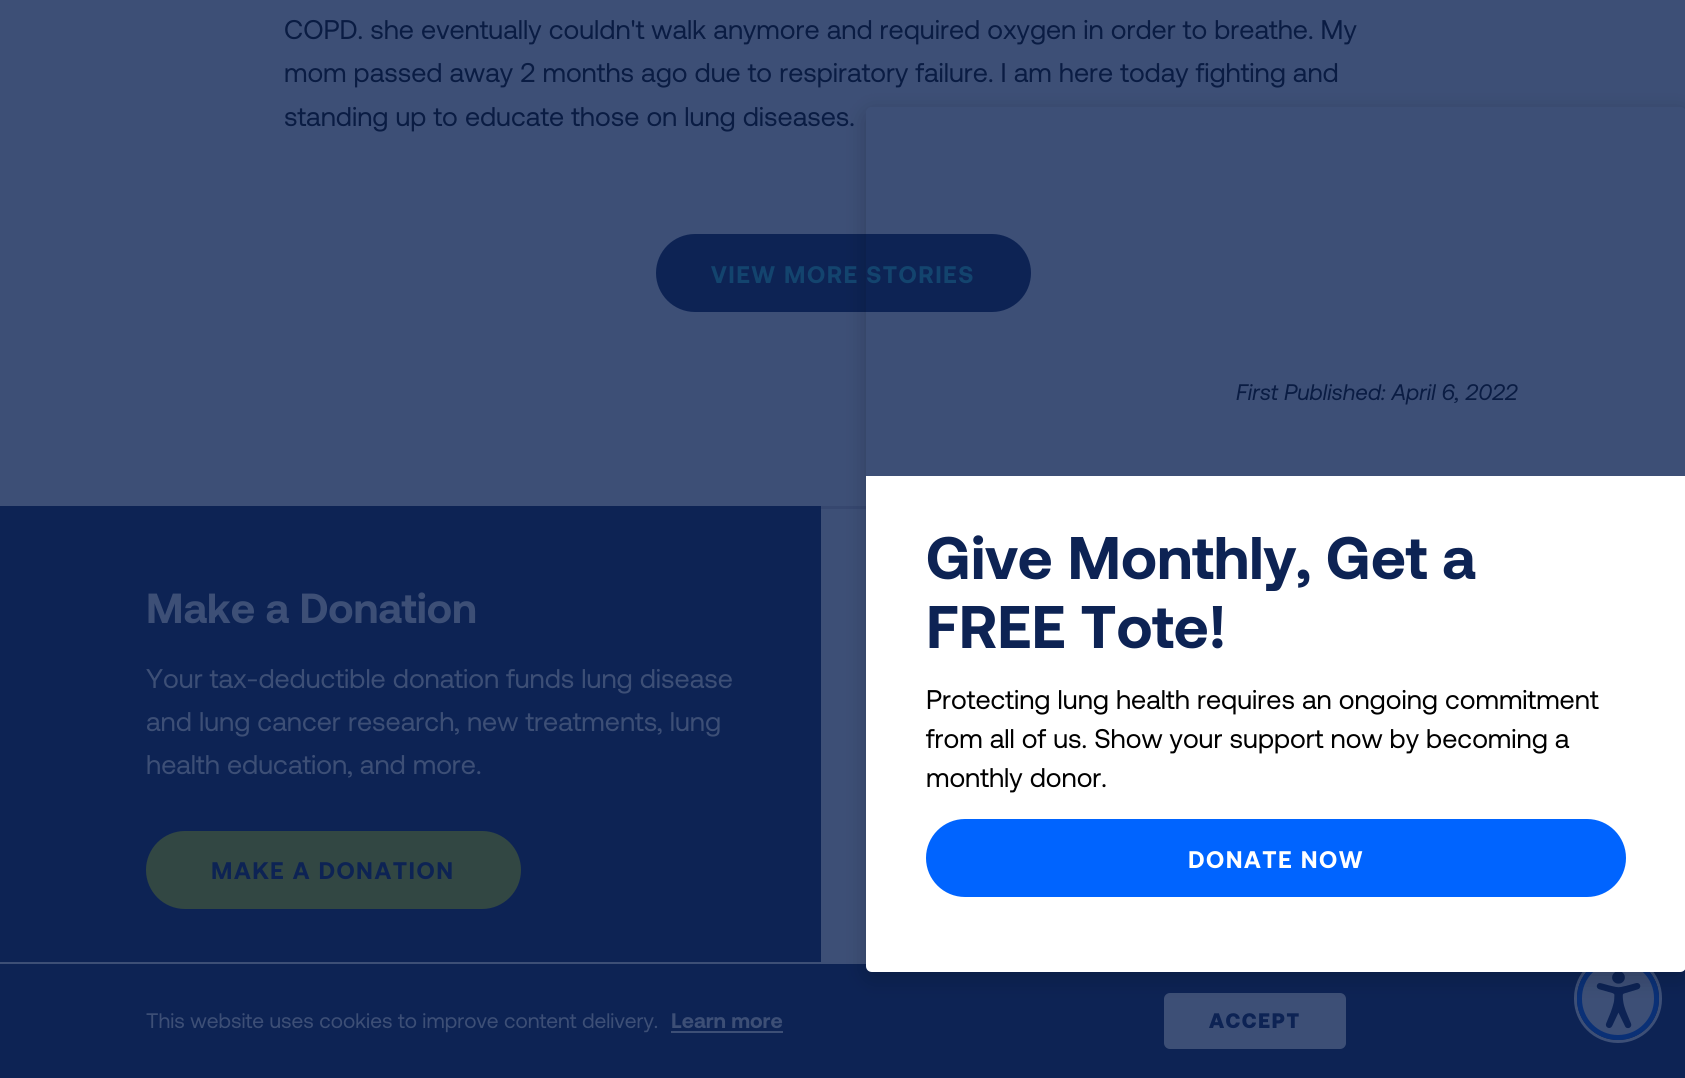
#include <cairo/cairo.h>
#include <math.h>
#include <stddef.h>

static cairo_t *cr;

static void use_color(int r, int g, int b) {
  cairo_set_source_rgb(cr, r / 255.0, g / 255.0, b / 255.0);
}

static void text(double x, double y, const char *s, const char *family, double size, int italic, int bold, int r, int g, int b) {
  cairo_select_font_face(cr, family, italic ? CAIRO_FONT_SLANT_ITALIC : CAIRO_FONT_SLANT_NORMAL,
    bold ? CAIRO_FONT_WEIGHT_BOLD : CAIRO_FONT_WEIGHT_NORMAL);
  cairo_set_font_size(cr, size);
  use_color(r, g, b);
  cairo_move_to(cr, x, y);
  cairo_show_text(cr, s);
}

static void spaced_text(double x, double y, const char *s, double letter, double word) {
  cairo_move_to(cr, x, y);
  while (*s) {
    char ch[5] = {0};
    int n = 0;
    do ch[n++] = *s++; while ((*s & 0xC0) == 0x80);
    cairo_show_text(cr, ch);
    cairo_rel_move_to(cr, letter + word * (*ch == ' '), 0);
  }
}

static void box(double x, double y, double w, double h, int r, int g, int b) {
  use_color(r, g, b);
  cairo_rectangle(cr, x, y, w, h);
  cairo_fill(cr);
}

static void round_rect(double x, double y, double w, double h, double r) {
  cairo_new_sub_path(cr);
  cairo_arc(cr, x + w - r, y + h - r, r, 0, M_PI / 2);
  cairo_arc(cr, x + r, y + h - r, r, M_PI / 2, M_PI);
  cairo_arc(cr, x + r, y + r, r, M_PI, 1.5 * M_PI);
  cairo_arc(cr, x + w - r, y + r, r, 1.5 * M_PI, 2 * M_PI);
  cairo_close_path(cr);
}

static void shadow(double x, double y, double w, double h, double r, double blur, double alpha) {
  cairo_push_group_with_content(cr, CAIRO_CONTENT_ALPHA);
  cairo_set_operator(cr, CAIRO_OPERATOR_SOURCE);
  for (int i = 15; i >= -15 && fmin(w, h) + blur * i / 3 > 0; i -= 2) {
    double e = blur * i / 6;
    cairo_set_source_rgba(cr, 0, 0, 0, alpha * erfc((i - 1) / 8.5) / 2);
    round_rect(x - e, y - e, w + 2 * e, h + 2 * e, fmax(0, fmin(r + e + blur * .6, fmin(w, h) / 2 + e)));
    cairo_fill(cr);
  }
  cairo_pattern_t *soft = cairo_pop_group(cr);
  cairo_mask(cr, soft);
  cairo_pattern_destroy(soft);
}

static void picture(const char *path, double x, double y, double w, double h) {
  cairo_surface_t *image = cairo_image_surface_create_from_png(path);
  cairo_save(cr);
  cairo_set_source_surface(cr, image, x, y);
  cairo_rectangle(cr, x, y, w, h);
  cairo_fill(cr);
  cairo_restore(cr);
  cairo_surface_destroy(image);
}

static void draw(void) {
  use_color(61, 79, 118);
  cairo_paint(cr);
  use_color(13, 35, 84);
  round_rect(658.5, 236.5, 370, 73, 36.5);
  cairo_fill_preserve(cr);
  cairo_set_line_width(cr, 5);
  cairo_stroke(cr);
  box(821, 506, 45, 3, 54, 71, 111);
  box(0, 506, 821, 456, 13, 35, 84);
  use_color(50, 71, 67);
  round_rect(148.5, 833.5, 370, 73, 36.5);
  cairo_fill_preserve(cr);
  cairo_stroke(cr);
  box(0, 964, 1685, 114, 13, 35, 84);
  use_color(61, 79, 118);
  round_rect(1164, 993, 182, 56, 6);
  cairo_fill(cr);
  round_rect(1575.5, 955.5, 85, 86, 42.5);
  cairo_set_line_width(cr, 3);
  cairo_stroke(cr);
  round_rect(1579.5, 959.5, 77, 78, 38.5);
  cairo_fill_preserve(cr);
  use_color(10, 48, 118);
  cairo_set_line_width(cr, 5);
  cairo_stroke(cr);
  picture("img_01.png", 1596, 972, 45, 57);
  cairo_save(cr);
  cairo_set_fill_rule(cr, CAIRO_FILL_RULE_EVEN_ODD);
  cairo_new_path(cr);
  cairo_move_to(cr, 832, 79);
  cairo_line_to(cr, 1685, 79);
  cairo_line_to(cr, 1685, 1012);
  cairo_line_to(cr, 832, 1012);
  cairo_close_path(cr);
  cairo_move_to(cr, 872, 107);
  cairo_line_to(cr, 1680, 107);
  cairo_curve_to(cr, 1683.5, 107, 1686, 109.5, 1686, 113);
  cairo_line_to(cr, 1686, 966);
  cairo_curve_to(cr, 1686, 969.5, 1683.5, 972, 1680, 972);
  cairo_line_to(cr, 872, 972);
  cairo_curve_to(cr, 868.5, 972, 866, 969.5, 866, 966);
  cairo_line_to(cr, 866, 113);
  cairo_curve_to(cr, 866, 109.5, 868.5, 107, 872, 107);
  cairo_close_path(cr);
  cairo_clip(cr);
  use_color(0, 0, 0);
  shadow(866, 113, 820, 865, 6, 11, 0.2);
  cairo_restore(cr);
  use_color(255, 255, 255);
  cairo_new_path(cr);
  cairo_move_to(cr, 866, 476);
  cairo_line_to(cr, 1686, 476);
  cairo_line_to(cr, 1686, 966);
  cairo_curve_to(cr, 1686, 969.5, 1683.5, 972, 1680, 972);
  cairo_line_to(cr, 872, 972);
  cairo_curve_to(cr, 868.5, 972, 866, 969.5, 866, 966);
  cairo_close_path(cr);
  cairo_fill(cr);
  use_color(0, 100, 255);
  round_rect(928.5, 821.5, 695, 73, 36.5);
  cairo_fill_preserve(cr);
  cairo_stroke(cr);
  box(671, 1031, 112, 2, 61, 79, 118);
  text(284, 39, "COPD. she eventually couldn't walk anymore and required oxygen in order to breathe. My", "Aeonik", 27, 0, 0, 10, 28, 67);
  text(284, 82, "mom passed away 2 months ago due to respiratory failure. I am here today fighting and", "Aeonik", 27, 0, 0, 10, 28, 67);
  text(284, 126, "standing up to educate those on lung diseases.", "Aeonik", 27, 0, 0, 10, 28, 67);
  cairo_select_font_face(cr, "Aeonik", CAIRO_FONT_SLANT_NORMAL, CAIRO_FONT_WEIGHT_BOLD);
  cairo_set_font_size(cr, 24);
  use_color(19, 68, 110);
  spaced_text(711, 283, "VIEW MORE STORIES", 1.5, 0);
  text(1236, 400, "First Published: April 6, 2022", "Aeonik", 22.5, 1, 0, 10, 28, 67);
  text(146, 623, "Make a Donation", "Aeonik", 42, 0, 1, 61, 79, 118);
  text(146, 688, "Your tax-deductible donation funds lung disease", "Aeonik", 27, 0, 0, 61, 79, 118);
  text(146, 731, "and lung cancer research, new treatments, lung", "Aeonik", 27, 0, 0, 61, 79, 118);
  text(146, 774, "health education, and more.", "Aeonik", 27, 0, 0, 61, 79, 118);
  cairo_select_font_face(cr, "Aeonik", CAIRO_FONT_SLANT_NORMAL, CAIRO_FONT_WEIGHT_BOLD);
  cairo_set_font_size(cr, 24);
  use_color(13, 35, 84);
  spaced_text(211, 879, "MAKE A DONATION", 1.5, 0);
  text(926, 579, "Give Monthly, Get a", "Aeonik", 60, 0, 1, 13, 35, 84);
  text(926, 648, "FREE Tote!", "Aeonik", 60, 0, 1, 13, 35, 84);
  text(926, 709, "Protecting lung health requires an ongoing commitment", "Aeonik", 27, 0, 0, 0, 0, 0);
  text(926, 748, "from all of us. Show your support now by becoming a", "Aeonik", 27, 0, 0, 0, 0, 0);
  text(926, 787, "monthly donor.", "Aeonik", 27, 0, 0, 0, 0, 0);
  cairo_select_font_face(cr, "Aeonik", CAIRO_FONT_SLANT_NORMAL, CAIRO_FONT_WEIGHT_BOLD);
  cairo_set_font_size(cr, 24);
  use_color(255, 255, 255);
  spaced_text(1188, 868, "DONATE NOW", 1.5, 0);
  text(146, 1028, "This website uses cookies to improve content delivery.", "Aeonik", 21, 0, 0, 61, 79, 118);
  text(671, 1028, "Learn more", "Aeonik", 21, 0, 1, 61, 79, 118);
  cairo_select_font_face(cr, "Aeonik Black", CAIRO_FONT_SLANT_NORMAL, CAIRO_FONT_WEIGHT_NORMAL);
  use_color(13, 35, 84);
  spaced_text(1209, 1028, "ACCEPT", 1.5, 0);
}

int main(void) {
  cairo_surface_t *surface = cairo_image_surface_create(CAIRO_FORMAT_RGB24, 1685, 1078);
  cr = cairo_create(surface);
  cairo_font_options_t *options = cairo_font_options_create();
  cairo_font_options_set_hint_metrics(options, CAIRO_HINT_METRICS_OFF);
  cairo_font_options_set_hint_style(options, CAIRO_HINT_STYLE_NONE);
  cairo_set_font_options(cr, options);
  cairo_set_miter_limit(cr, 4);
  draw();
  cairo_surface_write_to_png(surface, "out.png");
  cairo_font_options_destroy(options);
  cairo_destroy(cr);
  cairo_surface_destroy(surface);
  return 0;
}
